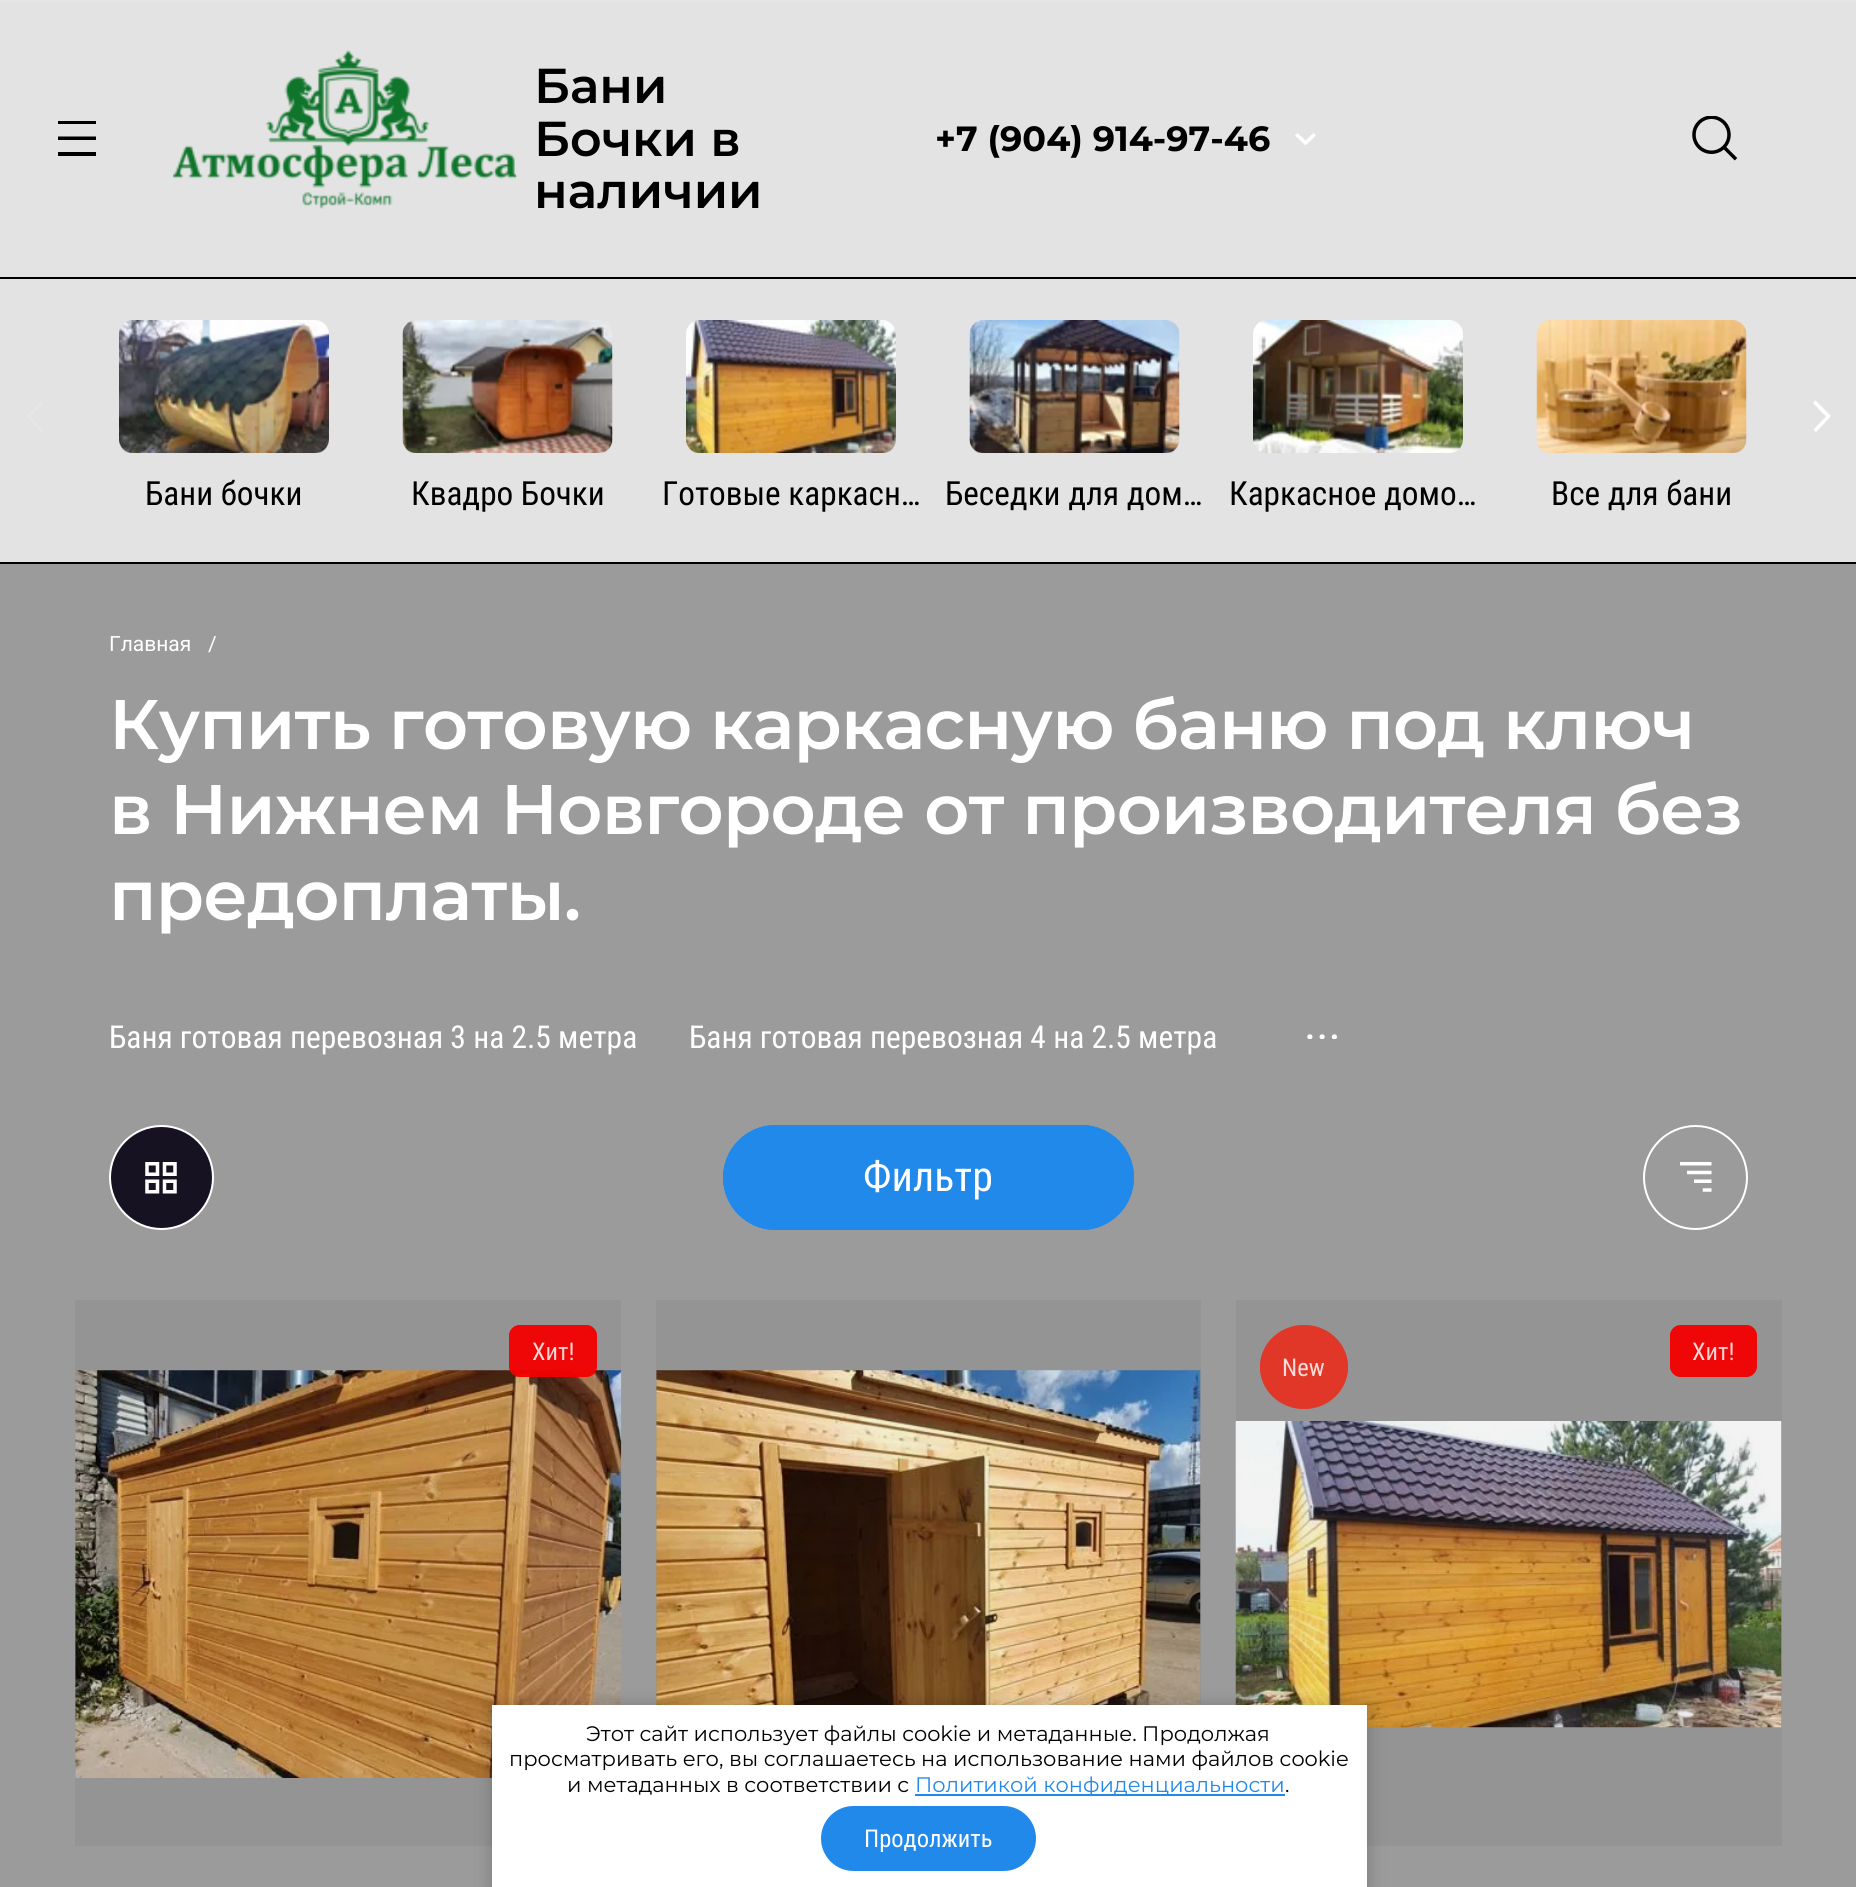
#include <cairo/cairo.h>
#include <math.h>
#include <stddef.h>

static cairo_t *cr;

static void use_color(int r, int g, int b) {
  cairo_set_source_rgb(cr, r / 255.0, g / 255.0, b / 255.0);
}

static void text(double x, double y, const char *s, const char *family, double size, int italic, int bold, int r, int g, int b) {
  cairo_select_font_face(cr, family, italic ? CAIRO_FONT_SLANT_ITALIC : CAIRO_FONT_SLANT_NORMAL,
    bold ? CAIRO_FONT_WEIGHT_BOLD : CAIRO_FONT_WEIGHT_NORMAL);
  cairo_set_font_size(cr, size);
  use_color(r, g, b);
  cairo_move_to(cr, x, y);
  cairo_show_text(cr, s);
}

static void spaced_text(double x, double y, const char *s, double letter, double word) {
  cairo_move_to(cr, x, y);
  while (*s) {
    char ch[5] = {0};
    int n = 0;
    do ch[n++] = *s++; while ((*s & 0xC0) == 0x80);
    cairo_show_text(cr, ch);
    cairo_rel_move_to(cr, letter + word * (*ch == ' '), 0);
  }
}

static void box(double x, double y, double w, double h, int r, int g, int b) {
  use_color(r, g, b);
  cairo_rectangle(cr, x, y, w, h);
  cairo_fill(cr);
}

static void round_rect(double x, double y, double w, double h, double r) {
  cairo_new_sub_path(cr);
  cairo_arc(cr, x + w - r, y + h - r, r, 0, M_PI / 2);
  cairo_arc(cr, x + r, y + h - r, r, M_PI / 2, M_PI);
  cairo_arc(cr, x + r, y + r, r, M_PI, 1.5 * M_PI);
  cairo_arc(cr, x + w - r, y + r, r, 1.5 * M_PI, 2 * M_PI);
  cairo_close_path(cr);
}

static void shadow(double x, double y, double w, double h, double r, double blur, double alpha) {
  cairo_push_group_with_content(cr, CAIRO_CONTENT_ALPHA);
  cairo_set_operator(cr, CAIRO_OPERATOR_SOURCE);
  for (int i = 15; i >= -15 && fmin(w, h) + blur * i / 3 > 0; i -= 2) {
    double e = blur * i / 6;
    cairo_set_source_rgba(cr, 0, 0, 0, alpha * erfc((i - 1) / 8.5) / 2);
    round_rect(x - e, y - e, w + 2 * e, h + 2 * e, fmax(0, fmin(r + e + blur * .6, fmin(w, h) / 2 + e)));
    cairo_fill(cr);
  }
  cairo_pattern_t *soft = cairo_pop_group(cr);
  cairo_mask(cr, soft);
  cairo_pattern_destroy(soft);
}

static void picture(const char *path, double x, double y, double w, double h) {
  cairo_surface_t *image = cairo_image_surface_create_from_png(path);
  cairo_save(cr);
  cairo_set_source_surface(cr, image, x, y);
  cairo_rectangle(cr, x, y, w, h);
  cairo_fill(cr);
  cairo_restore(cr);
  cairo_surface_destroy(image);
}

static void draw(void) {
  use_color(155, 155, 155);
  cairo_paint(cr);
  use_color(230, 230, 230);
  cairo_new_path(cr);
  cairo_move_to(cr, 0, 0);
  cairo_line_to(cr, 0, 2);
  cairo_line_to(cr, 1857, 2);
  cairo_line_to(cr, 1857, -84);
  cairo_line_to(cr, 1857, 0);
  cairo_close_path(cr);
  cairo_fill(cr);
  box(0, 2, 1856, 560, 227, 227, 227);
  box(0, 277, 1856, 2, 0, 0, 0);
  cairo_set_fill_rule(cr, CAIRO_FILL_RULE_EVEN_ODD);
  cairo_new_path(cr);
  cairo_move_to(cr, 58, 121);
  cairo_line_to(cr, 96, 121);
  cairo_line_to(cr, 96, 124);
  cairo_line_to(cr, 58, 124);
  cairo_close_path(cr);
  cairo_move_to(cr, 58, 136.5);
  cairo_line_to(cr, 96, 136.5);
  cairo_line_to(cr, 96, 140);
  cairo_line_to(cr, 58, 140);
  cairo_close_path(cr);
  cairo_move_to(cr, 96, 152);
  cairo_line_to(cr, 58, 152);
  cairo_line_to(cr, 58, 156);
  cairo_line_to(cr, 96, 156);
  cairo_close_path(cr);
  cairo_fill(cr);
  picture("img_01.png", 173, 50, 344, 159);
  picture("img_02.png", 1295, 133, 21, 12);
  picture("img_03.png", 1692, 116, 46, 45);
  use_color(230, 230, 230);
  cairo_set_fill_rule(cr, CAIRO_FILL_RULE_WINDING);
  cairo_new_path(cr);
  cairo_move_to(cr, 30.5, 416);
  cairo_line_to(cr, 43.5, 429.5);
  cairo_line_to(cr, 41, 432);
  cairo_line_to(cr, 29.5, 420);
  cairo_curve_to(cr, 27, 417.5, 25, 417, 27.5, 414);
  cairo_line_to(cr, 41, 400.5);
  cairo_line_to(cr, 43.5, 403);
  cairo_close_path(cr);
  cairo_fill(cr);
  use_color(255, 255, 255);
  cairo_new_path(cr);
  cairo_move_to(cr, 1826, 416.5);
  cairo_line_to(cr, 1813, 403);
  cairo_line_to(cr, 1815.5, 400.5);
  cairo_line_to(cr, 1827.5, 412.5);
  cairo_curve_to(cr, 1830, 415, 1831.5, 415.5, 1829, 418.5);
  cairo_line_to(cr, 1816, 432);
  cairo_line_to(cr, 1813.5, 429.5);
  cairo_close_path(cr);
  cairo_fill(cr);
  picture("img_04.png", 119, 320, 210, 133);
  picture("img_05.png", 402, 320, 211, 133);
  picture("img_06.png", 686, 320, 210, 133);
  picture("img_07.png", 969, 320, 211, 133);
  picture("img_08.png", 1253, 320, 210, 133);
  picture("img_09.png", 1536, 320, 211, 133);
  box(0, 562, 1856, 2, 0, 0, 0);
  picture("img_10.png", 1307, 1034, 30, 5);
  use_color(23, 18, 33);
  cairo_arc(cr, 161.5, 1177.5, 51.5, 0, 2 * M_PI);
  cairo_fill_preserve(cr);
  use_color(255, 255, 255);
  cairo_stroke(cr);
  picture("img_11.png", 145, 1162, 32, 32);
  use_color(33, 137, 234);
  round_rect(723, 1125, 411, 105, 52.5);
  cairo_fill(cr);
  round_rect(724, 1126, 409, 103, 51.5);
  cairo_stroke(cr);
  cairo_arc(cr, 1695.5, 1177.5, 51.5, 0, 2 * M_PI);
  use_color(255, 255, 255);
  cairo_stroke(cr);
  picture("img_12.png", 1680, 1162, 32, 30);
  picture("img_13.png", 75, 1370, 547, 408);
  cairo_set_source_rgba(cr, 1, 0, 0, 0.8);
  round_rect(509, 1325, 88, 52, 11);
  cairo_fill(cr);
  round_rect(509, 1325, 88, 52, 11);
  cairo_fill(cr);
  cairo_set_source_rgba(cr, 0, 0, 0, 0.05);
  cairo_rectangle(cr, 75, 1300, 546, 546);
  cairo_fill(cr);
  picture("img_14.png", 656, 1370, 545, 335);
  cairo_rectangle(cr, 656, 1300, 545, 405);
  cairo_fill(cr);
  picture("img_15.png", 1235, 1421, 547, 307);
  use_color(221, 74, 61);
  cairo_new_path(cr);
  cairo_move_to(cr, 1304, 1325);
  cairo_curve_to(cr, 1328.5, 1325, 1348, 1344, 1348, 1367);
  cairo_curve_to(cr, 1348, 1390, 1328.5, 1409, 1304, 1409);
  cairo_curve_to(cr, 1279.5, 1409, 1260, 1390, 1260, 1367);
  cairo_curve_to(cr, 1260, 1344, 1279.5, 1325, 1304, 1325);
  cairo_close_path(cr);
  cairo_fill(cr);
  use_color(235, 31, 31);
  round_rect(1670, 1325, 87, 52, 11);
  cairo_fill(cr);
  cairo_set_source_rgba(cr, 1, 0, 0, 0.8);
  round_rect(1670, 1325, 87, 52, 11);
  cairo_fill(cr);
  cairo_set_source_rgba(cr, 0.933, 0.212, 0.149, 0.8);
  cairo_new_path(cr);
  cairo_move_to(cr, 1304, 1325);
  cairo_curve_to(cr, 1328.5, 1325, 1348, 1344, 1348, 1367);
  cairo_curve_to(cr, 1348, 1390, 1328.5, 1409, 1304, 1409);
  cairo_curve_to(cr, 1279.5, 1409, 1260, 1390, 1260, 1367);
  cairo_curve_to(cr, 1260, 1344, 1279.5, 1325, 1304, 1325);
  cairo_close_path(cr);
  cairo_fill(cr);
  cairo_set_source_rgba(cr, 0, 0, 0, 0.05);
  cairo_rectangle(cr, 1236, 1300, 546, 546);
  cairo_fill(cr);
  use_color(0, 0, 0);
  shadow(492, 1706, 875, 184, 0, 9, 0.23);
  box(492, 1705, 875, 182, 255, 255, 255);
  box(915, 1794, 370, 2, 33, 137, 234);
  round_rect(821, 1806, 215, 65, 32.5);
  cairo_fill(cr);
  text(534, 103, "Бани", "Montserrat SemiBold", 49, 0, 0, 0, 0, 0);
  text(534, 156, "Бочки в", "Montserrat SemiBold", 49, 0, 0, 0, 0, 0);
  text(534, 208, "наличии", "Montserrat SemiBold", 49, 0, 0, 0, 0, 0);
  text(935, 151, "+7 (904) 914-97-46", "Montserrat", 35, 0, 1, 0, 0, 0);
  text(145, 505, "Бани бочки", "Roboto Condensed", 33.25, 0, 0, 0, 0, 0);
  text(411, 505, "Квадро Бочки", "Roboto Condensed", 33.25, 0, 0, 0, 0, 0);
  text(662, 505, "Готовые каркасн…", "Roboto Condensed", 33.25, 0, 0, 0, 0, 0);
  text(945, 505, "Беседки для дом…", "Roboto Condensed", 33.25, 0, 0, 0, 0, 0);
  text(1229, 505, "Каркасное домо…", "Roboto Condensed", 33.25, 0, 0, 0, 0, 0);
  text(1551, 505, "Все для бани", "Roboto Condensed", 33.25, 0, 0, 0, 0, 0);
  text(109, 651, "Главная", "Roboto", 21, 0, 0, 255, 255, 255);
  text(208, 651, "/", "Roboto", 21, 0, 0, 255, 255, 255);
  cairo_select_font_face(cr, "Montserrat SemiBold", CAIRO_FONT_SLANT_NORMAL, CAIRO_FONT_WEIGHT_NORMAL);
  cairo_set_font_size(cr, 70);
  spaced_text(109, 749, "Купить готовую каркасную баню под ключ", -0.8, 0);
  spaced_text(109, 834, "в Нижнем Новгороде от производителя без", -0.8, 0);
  spaced_text(109, 920, "предоплаты.", -0.8, 0);
  text(109, 1048, "Баня готовая перевозная 3 на 2.5 метра", "Roboto Condensed", 31.5, 0, 0, 255, 255, 255);
  text(689, 1048, "Баня готовая перевозная 4 на 2.5 метра", "Roboto Condensed", 31.5, 0, 0, 255, 255, 255);
  text(863, 1191, "Фильтр", "Roboto Condensed", 42, 0, 0, 255, 255, 255);
  text(532, 1360, "Хит!", "Roboto Condensed", 24.5, 0, 0, 254, 211, 211);
  text(1692, 1360, "Хит!", "Roboto Condensed", 24.5, 0, 0, 254, 211, 211);
  text(1282, 1376, "New", "Roboto Condensed", 24.5, 0, 0, 251, 220, 217);
  text(586, 1741, "Этот сайт использует файлы cookie и метаданные. Продолжая", "Montserrat", 21, 0, 0, 0, 0, 0);
  text(509, 1766, "просматривать его, вы соглашаетесь на использование нами файлов cookie", "Montserrat", 21, 0, 0, 0, 0, 0);
  text(567, 1792, "и метаданных в соответствии с", "Montserrat", 21, 0, 0, 0, 0, 0);
  text(915, 1792, "Политикой конфиденциальности", "Montserrat", 21, 0, 0, 33, 137, 234);
  text(1285, 1792, ".", "Montserrat", 21, 0, 0, 0, 0, 0);
  text(864, 1847, "Продолжить", "Roboto Condensed", 24.5, 0, 0, 255, 255, 255);
}

int main(void) {
  cairo_surface_t *surface = cairo_image_surface_create(CAIRO_FORMAT_RGB24, 1856, 1887);
  cr = cairo_create(surface);
  cairo_font_options_t *options = cairo_font_options_create();
  cairo_font_options_set_hint_metrics(options, CAIRO_HINT_METRICS_OFF);
  cairo_font_options_set_hint_style(options, CAIRO_HINT_STYLE_NONE);
  cairo_set_font_options(cr, options);
  cairo_set_miter_limit(cr, 4);
  draw();
  cairo_surface_write_to_png(surface, "out.png");
  cairo_font_options_destroy(options);
  cairo_destroy(cr);
  cairo_surface_destroy(surface);
  return 0;
}
